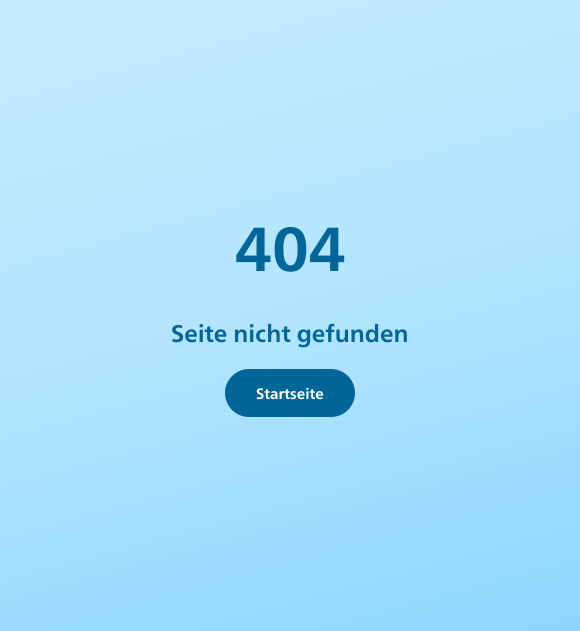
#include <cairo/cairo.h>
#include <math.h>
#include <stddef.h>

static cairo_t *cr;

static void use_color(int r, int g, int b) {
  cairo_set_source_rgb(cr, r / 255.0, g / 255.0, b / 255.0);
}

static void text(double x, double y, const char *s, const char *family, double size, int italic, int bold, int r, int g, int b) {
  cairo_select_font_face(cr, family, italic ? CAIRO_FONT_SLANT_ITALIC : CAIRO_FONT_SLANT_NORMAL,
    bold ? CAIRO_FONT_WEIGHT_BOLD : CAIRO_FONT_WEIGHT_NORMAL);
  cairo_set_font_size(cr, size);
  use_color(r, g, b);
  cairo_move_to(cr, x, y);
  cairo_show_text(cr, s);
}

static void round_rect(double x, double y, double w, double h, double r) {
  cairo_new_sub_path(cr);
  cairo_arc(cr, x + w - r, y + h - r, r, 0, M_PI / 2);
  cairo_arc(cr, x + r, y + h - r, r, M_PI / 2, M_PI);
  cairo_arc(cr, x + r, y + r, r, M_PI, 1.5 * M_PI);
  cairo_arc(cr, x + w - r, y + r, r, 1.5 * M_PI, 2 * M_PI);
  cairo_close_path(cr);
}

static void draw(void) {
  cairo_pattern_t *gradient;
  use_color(255, 255, 255);
  cairo_paint(cr);
  gradient = cairo_pattern_create_linear(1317, 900, 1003, -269);
  cairo_pattern_add_color_stop_rgba(gradient, 0, 0.776, 0.922, 1, 1);
  cairo_pattern_add_color_stop_rgba(gradient, 0.33, 0.529, 0.835, 0.996, 1);
  cairo_pattern_add_color_stop_rgba(gradient, 0.67, 0.694, 0.894, 1, 1);
  cairo_pattern_add_color_stop_rgba(gradient, 1, 0.776, 0.922, 1, 1);
  cairo_set_source(cr, gradient);
  cairo_pattern_destroy(gradient);
  cairo_rectangle(cr, 0, 0, 580, 631);
  cairo_fill(cr);
  use_color(0, 102, 153);
  round_rect(225, 369, 130, 48, 24);
  cairo_fill(cr);
  text(235, 271, "404", "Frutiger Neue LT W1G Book", 62, 0, 1, 0, 102, 153);
  text(171, 342, "Seite nicht gefunden", "Frutiger Neue LT W1G Book", 24, 0, 1, 0, 102, 153);
  text(256, 399, "Startseite", "Frutiger Neue LT W1G Book", 15, 0, 1, 255, 255, 255);
}

int main(void) {
  cairo_surface_t *surface = cairo_image_surface_create(CAIRO_FORMAT_RGB24, 580, 631);
  cr = cairo_create(surface);
  cairo_font_options_t *options = cairo_font_options_create();
  cairo_font_options_set_hint_metrics(options, CAIRO_HINT_METRICS_OFF);
  cairo_font_options_set_hint_style(options, CAIRO_HINT_STYLE_NONE);
  cairo_set_font_options(cr, options);
  cairo_set_miter_limit(cr, 4);
  draw();
  cairo_surface_write_to_png(surface, "out.png");
  cairo_font_options_destroy(options);
  cairo_destroy(cr);
  cairo_surface_destroy(surface);
  return 0;
}
